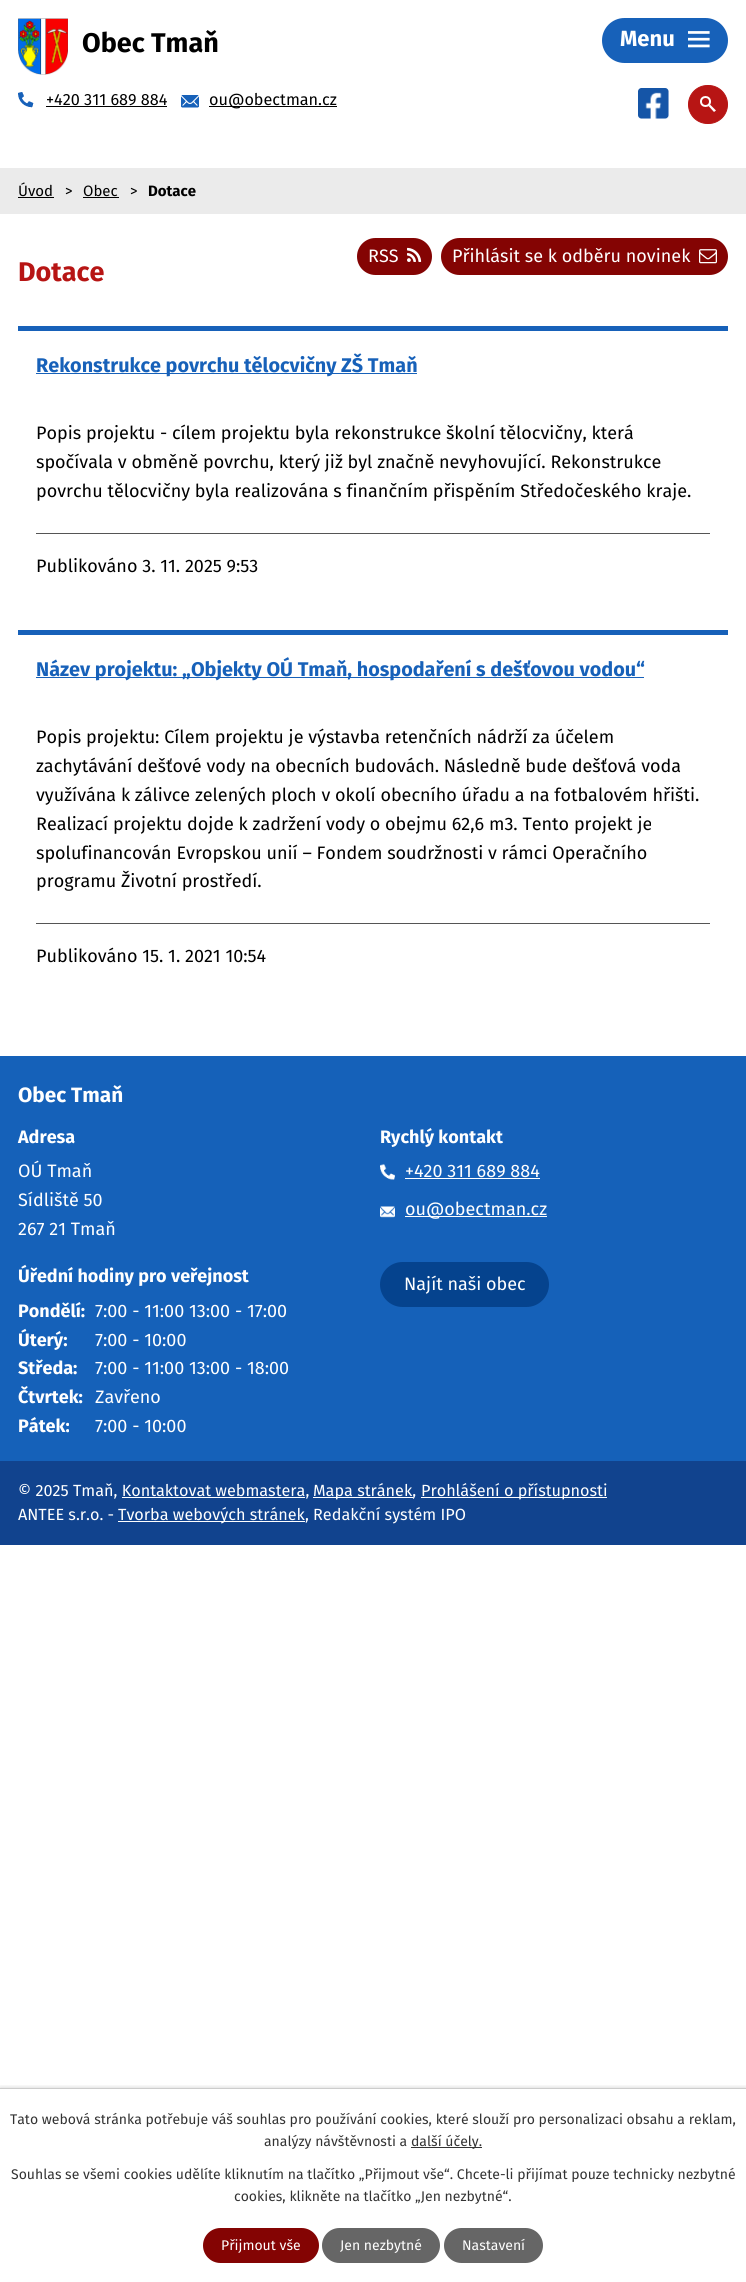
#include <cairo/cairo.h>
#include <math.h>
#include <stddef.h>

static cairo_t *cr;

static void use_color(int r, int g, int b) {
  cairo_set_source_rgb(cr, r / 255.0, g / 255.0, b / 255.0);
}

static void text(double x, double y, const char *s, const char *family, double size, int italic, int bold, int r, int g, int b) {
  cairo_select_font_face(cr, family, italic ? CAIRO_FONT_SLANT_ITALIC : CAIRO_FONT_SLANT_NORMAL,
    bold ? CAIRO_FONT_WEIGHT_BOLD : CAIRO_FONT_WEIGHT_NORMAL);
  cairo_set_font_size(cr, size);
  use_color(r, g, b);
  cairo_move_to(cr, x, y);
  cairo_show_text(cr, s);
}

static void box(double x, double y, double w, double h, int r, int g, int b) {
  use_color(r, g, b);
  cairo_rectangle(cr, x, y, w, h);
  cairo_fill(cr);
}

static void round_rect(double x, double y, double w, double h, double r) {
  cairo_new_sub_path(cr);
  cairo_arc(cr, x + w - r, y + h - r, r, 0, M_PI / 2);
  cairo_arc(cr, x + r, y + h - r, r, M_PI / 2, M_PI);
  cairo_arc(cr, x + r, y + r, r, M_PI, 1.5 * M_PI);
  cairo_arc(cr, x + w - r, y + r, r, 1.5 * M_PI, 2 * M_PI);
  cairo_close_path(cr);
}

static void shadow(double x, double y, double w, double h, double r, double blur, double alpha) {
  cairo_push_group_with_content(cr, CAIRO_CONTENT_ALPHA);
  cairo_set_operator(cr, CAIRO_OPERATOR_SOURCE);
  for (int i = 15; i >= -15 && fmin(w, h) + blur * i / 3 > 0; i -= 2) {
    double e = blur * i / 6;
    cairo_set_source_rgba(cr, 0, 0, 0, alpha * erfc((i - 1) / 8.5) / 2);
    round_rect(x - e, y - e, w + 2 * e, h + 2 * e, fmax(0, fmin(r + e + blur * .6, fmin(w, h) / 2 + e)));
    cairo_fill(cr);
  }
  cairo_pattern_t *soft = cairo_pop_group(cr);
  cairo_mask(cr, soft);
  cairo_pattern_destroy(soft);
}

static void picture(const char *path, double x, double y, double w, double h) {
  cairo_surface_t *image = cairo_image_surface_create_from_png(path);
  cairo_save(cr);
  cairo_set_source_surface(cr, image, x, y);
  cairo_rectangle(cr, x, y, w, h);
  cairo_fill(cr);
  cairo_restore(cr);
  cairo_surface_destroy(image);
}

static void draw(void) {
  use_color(255, 255, 255);
  cairo_paint(cr);
  picture("img_01.png", 18, 18, 50, 57);
  picture("img_02.png", 18, 92, 16, 16);
  box(46, 106, 121, 1, 0, 0, 0);
  picture("img_03.png", 181, 95, 18, 13);
  box(209, 106, 128, 1, 0, 0, 0);
  picture("img_04.png", 638, 88, 31, 31);
  use_color(183, 21, 20);
  round_rect(688.5, 85.5, 39, 38, 19);
  cairo_fill_preserve(cr);
  cairo_set_line_width(cr, 1);
  cairo_stroke(cr);
  cairo_arc(cr, 705.5, 101.5, 4.5, 0, 2 * M_PI);
  use_color(255, 255, 255);
  cairo_set_line_width(cr, 2);
  cairo_stroke(cr);
  cairo_new_path(cr);
  cairo_move_to(cr, 710, 104.5);
  cairo_line_to(cr, 716, 110.5);
  cairo_line_to(cr, 714, 112);
  cairo_line_to(cr, 708.5, 106);
  cairo_close_path(cr);
  cairo_fill(cr);
  use_color(23, 97, 185);
  round_rect(602, 18, 126, 45, 22.5);
  cairo_fill(cr);
  picture("img_05.png", 688, 31, 22, 17);
  box(0, 168, 746, 46, 235, 235, 235);
  box(18, 197, 36, 1, 0, 0, 0);
  box(83, 197, 36, 1, 0, 0, 0);
  use_color(132, 4, 3);
  round_rect(357, 238, 75, 37, 18.5);
  cairo_fill(cr);
  picture("img_06.png", 407, 247, 15, 15);
  round_rect(441, 238, 287, 37, 18.5);
  cairo_fill(cr);
  picture("img_07.png", 699, 249, 18, 15);
  box(18, 326, 710, 5, 23, 97, 185);
  box(36, 373, 381, 1, 23, 97, 185);
  box(36, 533, 674, 1, 85, 85, 85);
  box(18, 630, 710, 5, 23, 97, 185);
  box(36, 677, 608, 1, 23, 97, 185);
  box(36, 923, 674, 1, 85, 85, 85);
  box(0, 1056, 746, 405, 21, 97, 185);
  picture("img_08.png", 380, 1164, 15, 16);
  box(405, 1178, 135, 1, 255, 255, 255);
  picture("img_09.png", 380, 1206, 15, 12);
  box(405, 1216, 142, 1, 255, 255, 255);
  use_color(5, 67, 142);
  round_rect(380, 1262, 169, 45, 22.5);
  cairo_fill(cr);
  box(0, 1461, 746, 84, 17, 67, 142);
  box(313, 1497, 100, 1, 255, 255, 255);
  box(421, 1497, 186, 1, 255, 255, 255);
  box(122, 1497, 183, 1, 255, 255, 255);
  box(118, 1521, 187, 1, 255, 255, 255);
  cairo_save(cr);
  cairo_rectangle(cr, 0, 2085, 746, 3);
  cairo_clip(cr);
  use_color(0, 0, 0);
  shadow(0, 2088, 746, 194, 0, 2.5, 0.2);
  cairo_restore(cr);
  box(0, 2088, 746, 1, 204, 204, 204);
  box(411, 2147, 71, 1, 51, 51, 51);
  use_color(132, 4, 3);
  round_rect(203, 2228, 116, 35, 17.5);
  cairo_fill(cr);
  use_color(102, 102, 102);
  round_rect(322, 2228, 118, 35, 17.5);
  cairo_fill(cr);
  round_rect(444, 2228, 99, 35, 17.5);
  cairo_fill(cr);
  text(82, 52, "Obec Tmaň", "Fira Sans", 27, 0, 1, 0, 0, 0);
  text(46, 105, "+420 311 689 884", "Fira Sans", 16.2, 0, 0, 0, 0, 0);
  text(209, 105, "ou@obectman.cz", "Fira Sans", 16.2, 0, 0, 0, 0, 0);
  text(620, 46, "Menu", "Fira Sans", 22, 0, 1, 255, 255, 255);
  text(18, 196, "Úvod", "Fira Sans", 15, 0, 0, 0, 0, 0);
  text(65, 196, ">", "Fira Sans", 15, 0, 0, 0, 0, 0);
  text(83, 196, "Obec", "Fira Sans", 15, 0, 0, 0, 0, 0);
  text(130, 196, ">", "Fira Sans", 15, 0, 0, 0, 0, 0);
  text(148, 196, "Dotace", "Fira Sans", 15, 0, 1, 0, 0, 0);
  text(368, 262, "RSS", "Fira Sans", 18, 0, 0, 255, 255, 255);
  text(452, 262, "Přihlásit se k odběru novinek", "Fira Sans", 18, 0, 0, 255, 255, 255);
  text(18, 281, "Dotace", "Fira Sans", 27, 0, 1, 183, 21, 20);
  text(36, 372, "Rekonstrukce povrchu tělocvičny ZŠ Tmaň", "Fira Sans", 19.8, 0, 1, 23, 97, 185);
  text(36, 439, "Popis projektu - cílem projektu byla rekonstrukce školní tělocvičny, která", "Fira Sans", 18, 0, 0, 0, 0, 0);
  text(36, 468, "spočívala v obměně povrchu, který již byl značně nevyhovující. Rekonstrukce", "Fira Sans", 18, 0, 0, 0, 0, 0);
  text(36, 497, "povrchu tělocvičny byla realizována s finančním přispěním Středočeského kraje.", "Fira Sans", 18, 0, 0, 0, 0, 0);
  text(36, 572, "Publikováno 3. 11. 2025 9:53", "Fira Sans", 18, 0, 0, 0, 0, 0);
  text(36, 676, "Název projektu: „Objekty OÚ Tmaň, hospodaření s dešťovou vodou“", "Fira Sans", 19.8, 0, 1, 23, 97, 185);
  text(36, 743, "Popis projektu: Cílem projektu je výstavba retenčních nádrží za účelem", "Fira Sans", 18, 0, 0, 0, 0, 0);
  text(36, 772, "zachytávání dešťové vody na obecních budovách. Následně bude dešťová voda", "Fira Sans", 18, 0, 0, 0, 0, 0);
  text(36, 801, "využívána k zálivce zelených ploch v okolí obecního úřadu a na fotbalovém hřišti.", "Fira Sans", 18, 0, 0, 0, 0, 0);
  text(36, 830, "Realizací projektu dojde k zadržení vody o obejmu 62,6 m3. Tento projekt je", "Fira Sans", 18, 0, 0, 0, 0, 0);
  text(36, 859, "spolufinancován Evropskou unií – Fondem soudržnosti v rámci Operačního", "Fira Sans", 18, 0, 0, 0, 0, 0);
  text(36, 887, "programu Životní prostředí.", "Fira Sans", 18, 0, 0, 0, 0, 0);
  text(36, 962, "Publikováno 15. 1. 2021 10:54", "Fira Sans", 18, 0, 0, 0, 0, 0);
  text(18, 1102, "Obec Tmaň", "Fira Sans", 20.75, 0, 1, 255, 255, 255);
  text(18, 1143, "Adresa", "Fira Sans", 18, 0, 1, 255, 255, 255);
  text(18, 1177, "OÚ Tmaň", "Fira Sans", 18, 0, 0, 255, 255, 255);
  text(18, 1206, "Sídliště 50", "Fira Sans", 18, 0, 0, 255, 255, 255);
  text(18, 1235, "267 21 Tmaň", "Fira Sans", 18, 0, 0, 255, 255, 255);
  text(380, 1143, "Rychlý kontakt", "Fira Sans", 18, 0, 1, 255, 255, 255);
  text(405, 1177, "+420 311 689 884", "Fira Sans", 18, 0, 0, 255, 255, 255);
  text(405, 1215, "ou@obectman.cz", "Fira Sans", 18, 0, 0, 255, 255, 255);
  text(18, 1282, "Úřední hodiny pro veřejnost", "Fira Sans", 18, 0, 1, 255, 255, 255);
  text(18, 1317, "Pondělí:", "Fira Sans", 18, 0, 1, 255, 255, 255);
  text(95, 1317, "7:00 - 11:00 13:00 - 17:00", "Fira Sans", 18, 0, 0, 255, 255, 255);
  text(18, 1346, "Úterý:", "Fira Sans", 18, 0, 1, 255, 255, 255);
  text(95, 1346, "7:00 - 10:00", "Fira Sans", 18, 0, 0, 255, 255, 255);
  text(18, 1374, "Středa:", "Fira Sans", 18, 0, 1, 255, 255, 255);
  text(95, 1374, "7:00 - 11:00 13:00 - 18:00", "Fira Sans", 18, 0, 0, 255, 255, 255);
  text(18, 1403, "Čtvrtek:", "Fira Sans", 18, 0, 1, 255, 255, 255);
  text(95, 1403, "Zavřeno", "Fira Sans", 18, 0, 0, 255, 255, 255);
  text(18, 1432, "Pátek:", "Fira Sans", 18, 0, 1, 255, 255, 255);
  text(95, 1432, "7:00 - 10:00", "Fira Sans", 18, 0, 0, 255, 255, 255);
  text(404, 1290, "Najít naši obec", "Fira Sans", 18, 0, 0, 255, 255, 255);
  text(18, 1496, "© 2025 Tmaň, Kontaktovat webmastera,", "Fira Sans", 16.2, 0, 0, 255, 255, 255);
  text(313, 1496, "Mapa stránek,", "Fira Sans", 16.2, 0, 0, 255, 255, 255);
  text(421, 1496, "Prohlášení o přístupnosti", "Fira Sans", 16.2, 0, 0, 255, 255, 255);
  text(18, 1520, "ANTEE s.r.o. -", "Fira Sans", 16.2, 0, 0, 255, 255, 255);
  text(118, 1520, "Tvorba webových stránek, Redakční systém IPO", "Fira Sans", 16.2, 0, 0, 255, 255, 255);
  text(10, 2124, "Tato webová stránka potřebuje váš souhlas pro používání cookies, které slouží pro personalizaci obsahu a reklam,", "Fira Sans", 14, 0, 0, 51, 51, 51);
  text(264, 2146, "analýzy návštěvnosti a", "Fira Sans", 14, 0, 0, 51, 51, 51);
  text(411, 2146, "další účely.", "Fira Sans", 14, 0, 0, 51, 51, 51);
  text(11, 2179, "Souhlas se všemi cookies udělíte kliknutím na tlačítko „Přijmout vše“. Chcete-li přijímat pouze technicky nezbytné", "Fira Sans", 14, 0, 0, 51, 51, 51);
  text(234, 2201, "cookies, klikněte na tlačítko „Jen nezbytné“.", "Fira Sans", 14, 0, 0, 51, 51, 51);
  text(221, 2250, "Přijmout vše", "Fira Sans", 14, 0, 0, 255, 255, 255);
  text(340, 2250, "Jen nezbytné", "Fira Sans", 14, 0, 0, 255, 255, 255);
  text(462, 2250, "Nastavení", "Fira Sans", 14, 0, 0, 255, 255, 255);
}

int main(void) {
  cairo_surface_t *surface = cairo_image_surface_create(CAIRO_FORMAT_RGB24, 746, 2282);
  cr = cairo_create(surface);
  cairo_font_options_t *options = cairo_font_options_create();
  cairo_font_options_set_hint_metrics(options, CAIRO_HINT_METRICS_OFF);
  cairo_font_options_set_hint_style(options, CAIRO_HINT_STYLE_NONE);
  cairo_set_font_options(cr, options);
  cairo_set_miter_limit(cr, 4);
  draw();
  cairo_surface_write_to_png(surface, "out.png");
  cairo_font_options_destroy(options);
  cairo_destroy(cr);
  cairo_surface_destroy(surface);
  return 0;
}
